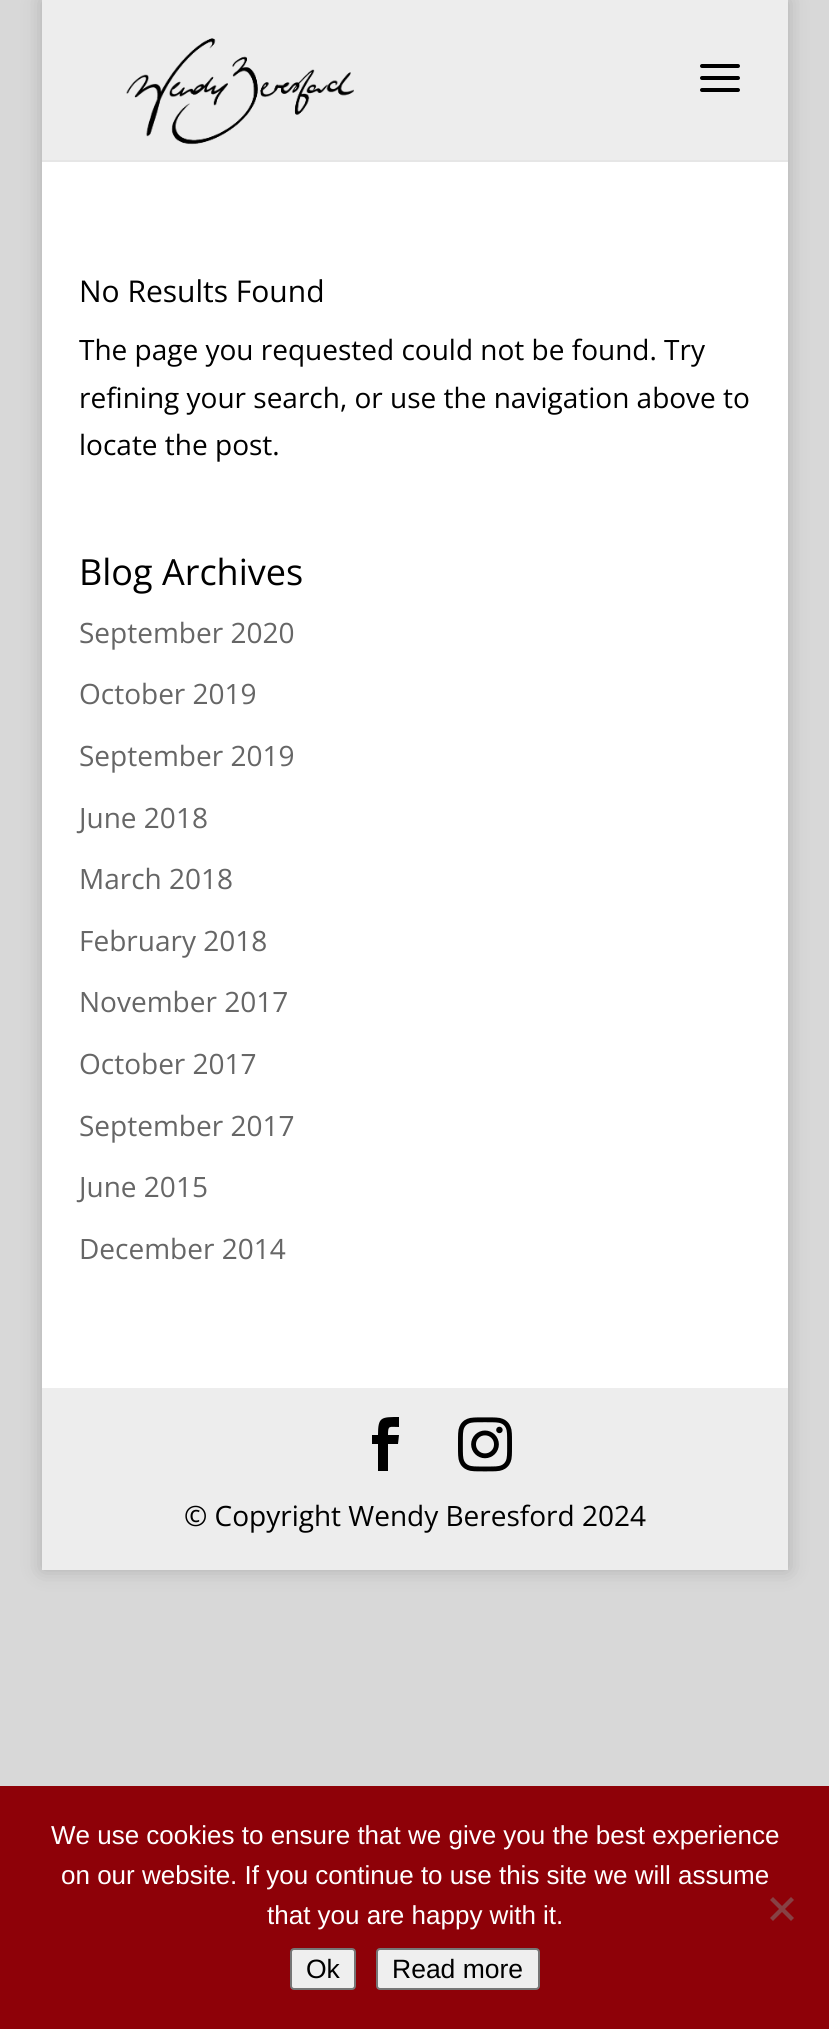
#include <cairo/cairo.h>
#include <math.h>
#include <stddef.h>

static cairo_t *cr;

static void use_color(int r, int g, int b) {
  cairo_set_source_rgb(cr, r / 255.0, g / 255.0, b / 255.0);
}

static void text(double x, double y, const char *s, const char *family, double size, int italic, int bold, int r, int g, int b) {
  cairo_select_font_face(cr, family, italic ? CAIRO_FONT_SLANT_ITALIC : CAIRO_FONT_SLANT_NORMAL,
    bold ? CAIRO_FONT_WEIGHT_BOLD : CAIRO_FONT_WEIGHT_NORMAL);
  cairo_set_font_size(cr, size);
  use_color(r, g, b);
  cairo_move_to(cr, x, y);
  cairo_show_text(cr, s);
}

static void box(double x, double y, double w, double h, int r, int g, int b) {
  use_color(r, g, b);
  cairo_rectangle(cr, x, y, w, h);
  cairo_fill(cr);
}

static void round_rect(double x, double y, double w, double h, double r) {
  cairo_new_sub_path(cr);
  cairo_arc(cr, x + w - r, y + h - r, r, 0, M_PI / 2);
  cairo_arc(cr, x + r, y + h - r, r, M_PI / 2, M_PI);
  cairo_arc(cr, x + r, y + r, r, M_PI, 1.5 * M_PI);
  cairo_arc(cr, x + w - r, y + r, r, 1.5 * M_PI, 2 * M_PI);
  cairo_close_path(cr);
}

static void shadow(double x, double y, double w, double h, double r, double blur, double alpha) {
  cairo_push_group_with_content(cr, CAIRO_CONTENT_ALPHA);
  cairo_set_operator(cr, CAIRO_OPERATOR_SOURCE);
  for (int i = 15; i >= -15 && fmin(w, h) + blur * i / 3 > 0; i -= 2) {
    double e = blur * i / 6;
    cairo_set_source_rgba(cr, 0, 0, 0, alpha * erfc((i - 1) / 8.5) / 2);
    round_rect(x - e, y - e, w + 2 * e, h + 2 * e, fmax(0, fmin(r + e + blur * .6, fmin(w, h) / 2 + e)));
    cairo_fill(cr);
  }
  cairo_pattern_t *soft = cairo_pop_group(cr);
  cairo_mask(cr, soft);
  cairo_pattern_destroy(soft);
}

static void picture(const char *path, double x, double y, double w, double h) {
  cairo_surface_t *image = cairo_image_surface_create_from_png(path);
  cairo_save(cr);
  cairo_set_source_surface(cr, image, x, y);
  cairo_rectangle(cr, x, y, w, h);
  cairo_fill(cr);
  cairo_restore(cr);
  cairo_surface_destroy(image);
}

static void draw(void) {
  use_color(216, 216, 216);
  cairo_paint(cr);
  use_color(0, 0, 0);
  shadow(42, 0, 746, 1570, 0, 10, 0.2);
  box(42, 160, 746, 2, 230, 230, 230);
  box(42, 0, 746, 160, 237, 237, 237);
  picture("img_01.png", 126, 38, 228, 107);
  picture("img_02.png", 700, 64, 40, 28);
  box(42, 162, 746, 1226, 255, 255, 255);
  box(42, 1388, 746, 182, 237, 237, 237);
  use_color(0, 0, 0);
  cairo_new_path(cr);
  cairo_move_to(cr, 378, 1471);
  cairo_line_to(cr, 388, 1471);
  cairo_line_to(cr, 388, 1444);
  cairo_line_to(cr, 398, 1444);
  cairo_line_to(cr, 399, 1435);
  cairo_line_to(cr, 388, 1435);
  cairo_curve_to(cr, 388, 1425, 389, 1427, 399, 1427);
  cairo_line_to(cr, 399, 1417);
  cairo_curve_to(cr, 381, 1417, 378, 1417, 378, 1435);
  cairo_line_to(cr, 372, 1435);
  cairo_line_to(cr, 372, 1444);
  cairo_line_to(cr, 378, 1444);
  cairo_close_path(cr);
  cairo_fill(cr);
  picture("img_03.png", 458, 1417, 54, 55);
  box(0, 1786, 829, 243, 142, 1, 8);
  use_color(135, 65, 68);
  cairo_new_path(cr);
  cairo_move_to(cr, 791, 1897);
  cairo_line_to(cr, 794, 1900);
  cairo_line_to(cr, 773, 1921);
  cairo_line_to(cr, 770, 1918);
  cairo_close_path(cr);
  cairo_fill(cr);
  cairo_new_path(cr);
  cairo_move_to(cr, 770, 1900);
  cairo_line_to(cr, 773, 1897);
  cairo_line_to(cr, 794, 1918);
  cairo_line_to(cr, 791, 1921);
  cairo_close_path(cr);
  cairo_fill(cr);
  use_color(239, 239, 239);
  round_rect(291, 1949, 64, 40, 3);
  cairo_fill_preserve(cr);
  use_color(118, 118, 118);
  cairo_stroke(cr);
  use_color(239, 239, 239);
  round_rect(377, 1949, 162, 40, 3);
  cairo_fill_preserve(cr);
  use_color(118, 118, 118);
  cairo_stroke(cr);
  text(79, 302, "No Results Found", "Open Sans", 30, 0, 0, 0, 0, 0);
  text(79, 360, "The page you requested could not be found. Try", "Open Sans", 28, 0, 0, 0, 0, 0);
  text(79, 408, "refining your search, or use the navigation above to", "Open Sans", 28, 0, 0, 0, 0, 0);
  text(79, 455, "locate the post.", "Open Sans", 28, 0, 0, 0, 0, 0);
  text(79, 585, "Blog Archives", "Open Sans", 36, 0, 0, 0, 0, 0);
  text(79, 643, "September 2020", "Open Sans", 28, 0, 0, 102, 102, 102);
  text(79, 704, "October 2019", "Open Sans", 28, 0, 0, 102, 102, 102);
  text(79, 766, "September 2019", "Open Sans", 28, 0, 0, 102, 102, 102);
  text(79, 828, "June 2018", "Open Sans", 28, 0, 0, 102, 102, 102);
  text(79, 889, "March 2018", "Open Sans", 28, 0, 0, 102, 102, 102);
  text(79, 951, "February 2018", "Open Sans", 28, 0, 0, 102, 102, 102);
  text(79, 1012, "November 2017", "Open Sans", 28, 0, 0, 102, 102, 102);
  text(79, 1074, "October 2017", "Open Sans", 28, 0, 0, 102, 102, 102);
  text(79, 1136, "September 2017", "Open Sans", 28, 0, 0, 102, 102, 102);
  text(79, 1197, "June 2015", "Open Sans", 28, 0, 0, 102, 102, 102);
  text(79, 1259, "December 2014", "Open Sans", 28, 0, 0, 102, 102, 102);
  text(184, 1526, "© Copyright Wendy Beresford 2024", "Open Sans", 28, 0, 0, 0, 0, 0);
  text(51, 1844, "We use cookies to ensure that we give you the best experience", "Liberation Sans", 26, 0, 0, 255, 255, 255);
  text(61, 1884, "on our website. If you continue to use this site we will assume", "Liberation Sans", 26, 0, 0, 255, 255, 255);
  text(267, 1924, "that you are happy with it.", "Liberation Sans", 26, 0, 0, 255, 255, 255);
  text(306, 1978, "Ok", "Liberation Sans", 26.5, 0, 0, 0, 0, 0);
  text(392, 1978, "Read more", "Liberation Sans", 26.5, 0, 0, 0, 0, 0);
}

int main(void) {
  cairo_surface_t *surface = cairo_image_surface_create(CAIRO_FORMAT_RGB24, 829, 2029);
  cr = cairo_create(surface);
  cairo_font_options_t *options = cairo_font_options_create();
  cairo_font_options_set_hint_metrics(options, CAIRO_HINT_METRICS_OFF);
  cairo_font_options_set_hint_style(options, CAIRO_HINT_STYLE_NONE);
  cairo_set_font_options(cr, options);
  cairo_set_miter_limit(cr, 4);
  draw();
  cairo_surface_write_to_png(surface, "out.png");
  cairo_font_options_destroy(options);
  cairo_destroy(cr);
  cairo_surface_destroy(surface);
  return 0;
}
